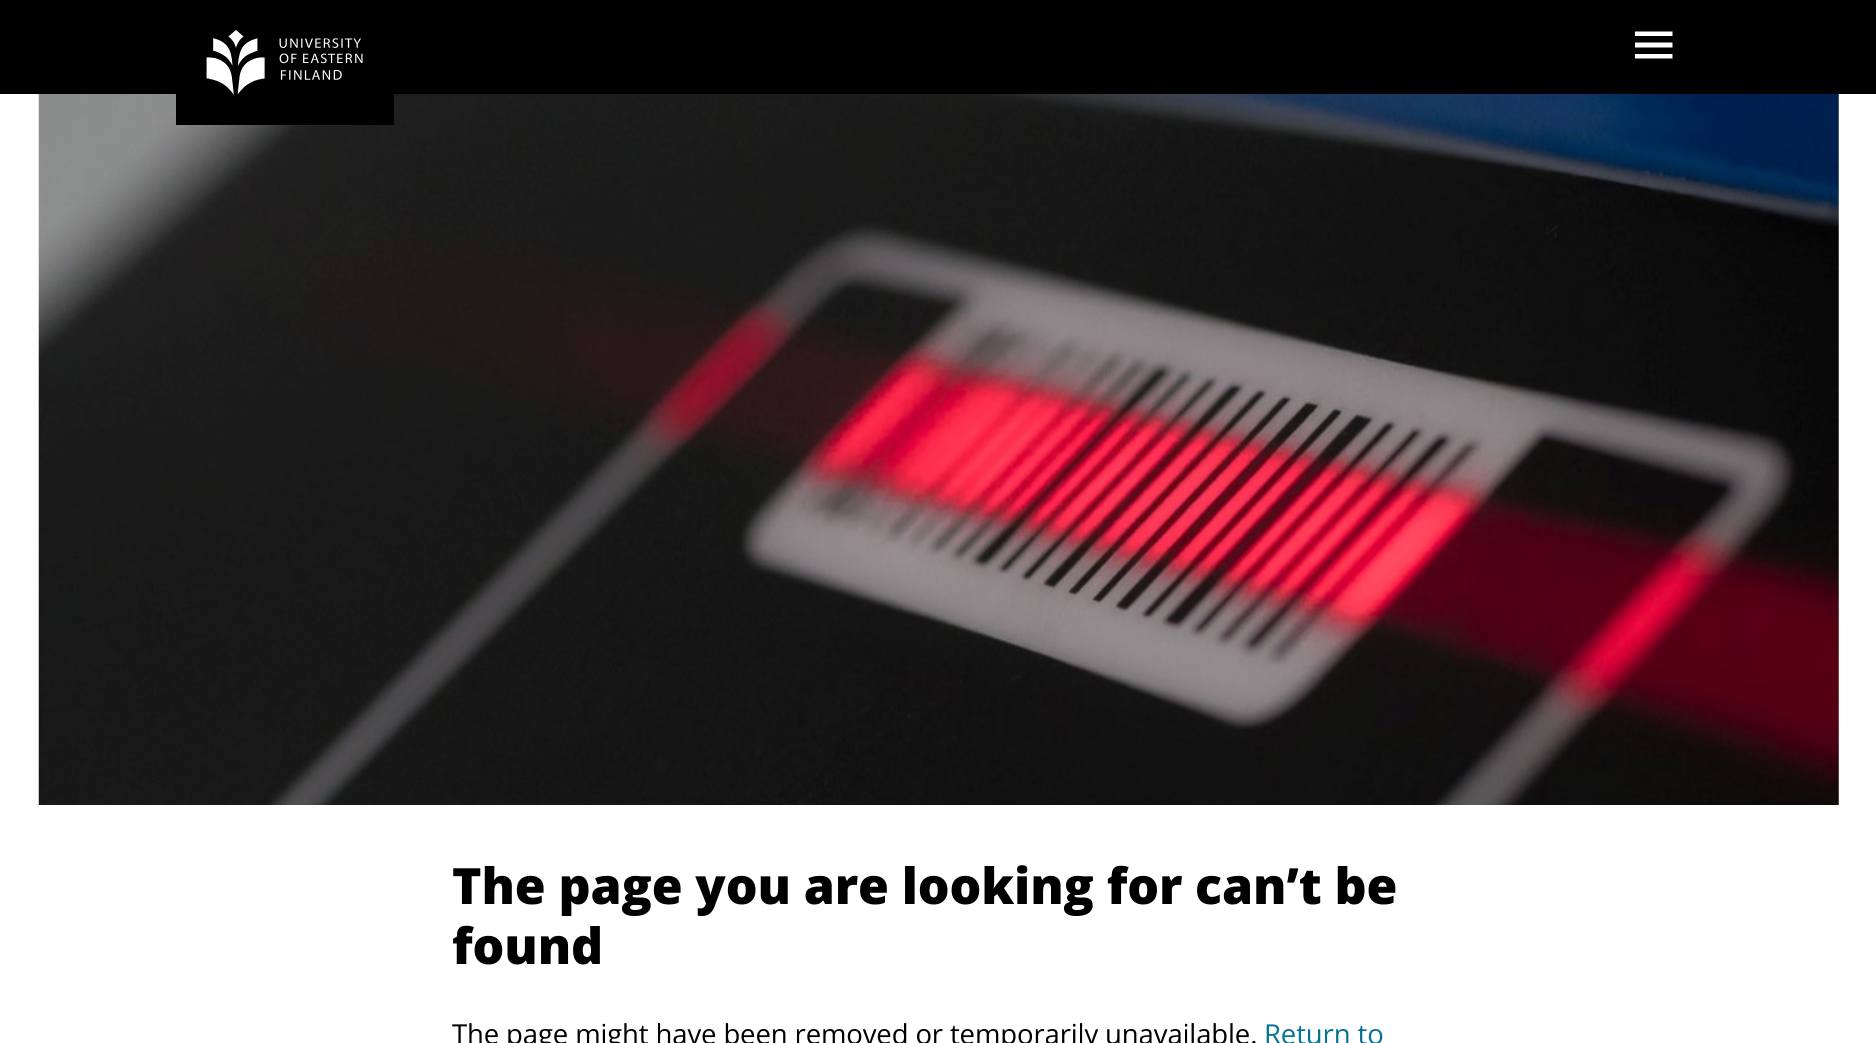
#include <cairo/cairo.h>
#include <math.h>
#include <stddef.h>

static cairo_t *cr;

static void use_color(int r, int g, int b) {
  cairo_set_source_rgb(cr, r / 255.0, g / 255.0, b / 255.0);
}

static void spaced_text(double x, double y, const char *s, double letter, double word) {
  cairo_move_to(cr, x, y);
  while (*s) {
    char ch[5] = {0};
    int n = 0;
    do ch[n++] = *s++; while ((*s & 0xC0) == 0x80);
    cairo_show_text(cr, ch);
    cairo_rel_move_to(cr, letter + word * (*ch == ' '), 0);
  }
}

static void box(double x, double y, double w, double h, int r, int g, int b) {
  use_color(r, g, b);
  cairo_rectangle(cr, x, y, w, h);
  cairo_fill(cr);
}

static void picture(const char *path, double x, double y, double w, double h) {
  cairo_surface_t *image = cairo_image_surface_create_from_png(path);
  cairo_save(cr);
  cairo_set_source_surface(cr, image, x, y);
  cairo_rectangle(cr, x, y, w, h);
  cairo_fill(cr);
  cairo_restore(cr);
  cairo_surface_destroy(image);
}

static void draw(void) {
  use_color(255, 255, 255);
  cairo_paint(cr);
  box(0, 0, 1876, 94, 0, 0, 0);
  picture("img_02.png", 38, 94, 1801, 711);
  box(176, 94, 218, 31, 0, 0, 0);
  picture("img_01.png", 206, 30, 157, 65);
  use_color(255, 255, 255);
  cairo_set_fill_rule(cr, CAIRO_FILL_RULE_EVEN_ODD);
  cairo_new_path(cr);
  cairo_move_to(cr, 1635, 31.5);
  cairo_line_to(cr, 1672.5, 31.5);
  cairo_line_to(cr, 1672.5, 36);
  cairo_line_to(cr, 1635, 36);
  cairo_close_path(cr);
  cairo_move_to(cr, 1635, 42.5);
  cairo_line_to(cr, 1672.5, 42.5);
  cairo_line_to(cr, 1672.5, 47.5);
  cairo_line_to(cr, 1635, 47.5);
  cairo_close_path(cr);
  cairo_move_to(cr, 1635, 54);
  cairo_line_to(cr, 1672.5, 54);
  cairo_line_to(cr, 1672.5, 58.5);
  cairo_line_to(cr, 1635, 58.5);
  cairo_close_path(cr);
  cairo_fill(cr);
  cairo_select_font_face(cr, "Open Sans ExtraBold", CAIRO_FONT_SLANT_NORMAL, CAIRO_FONT_WEIGHT_NORMAL);
  cairo_set_font_size(cr, 50);
  use_color(0, 0, 0);
  spaced_text(452, 904, "The page you are looking for can’t be", -0.12, 0);
  spaced_text(452, 964, "found", -0.12, 0);
  cairo_select_font_face(cr, "Open Sans", CAIRO_FONT_SLANT_NORMAL, CAIRO_FONT_WEIGHT_NORMAL);
  cairo_set_font_size(cr, 27.5);
  spaced_text(452, 1044, "The page might have been removed or temporarily unavailable.", -0.12, 0);
  use_color(6, 116, 147);
  spaced_text(1264, 1044, "Return to", -0.12, 0);
}

int main(void) {
  cairo_surface_t *surface = cairo_image_surface_create(CAIRO_FORMAT_RGB24, 1876, 1043);
  cr = cairo_create(surface);
  cairo_font_options_t *options = cairo_font_options_create();
  cairo_font_options_set_hint_metrics(options, CAIRO_HINT_METRICS_OFF);
  cairo_font_options_set_hint_style(options, CAIRO_HINT_STYLE_NONE);
  cairo_set_font_options(cr, options);
  cairo_set_miter_limit(cr, 4);
  draw();
  cairo_surface_write_to_png(surface, "out.png");
  cairo_font_options_destroy(options);
  cairo_destroy(cr);
  cairo_surface_destroy(surface);
  return 0;
}
